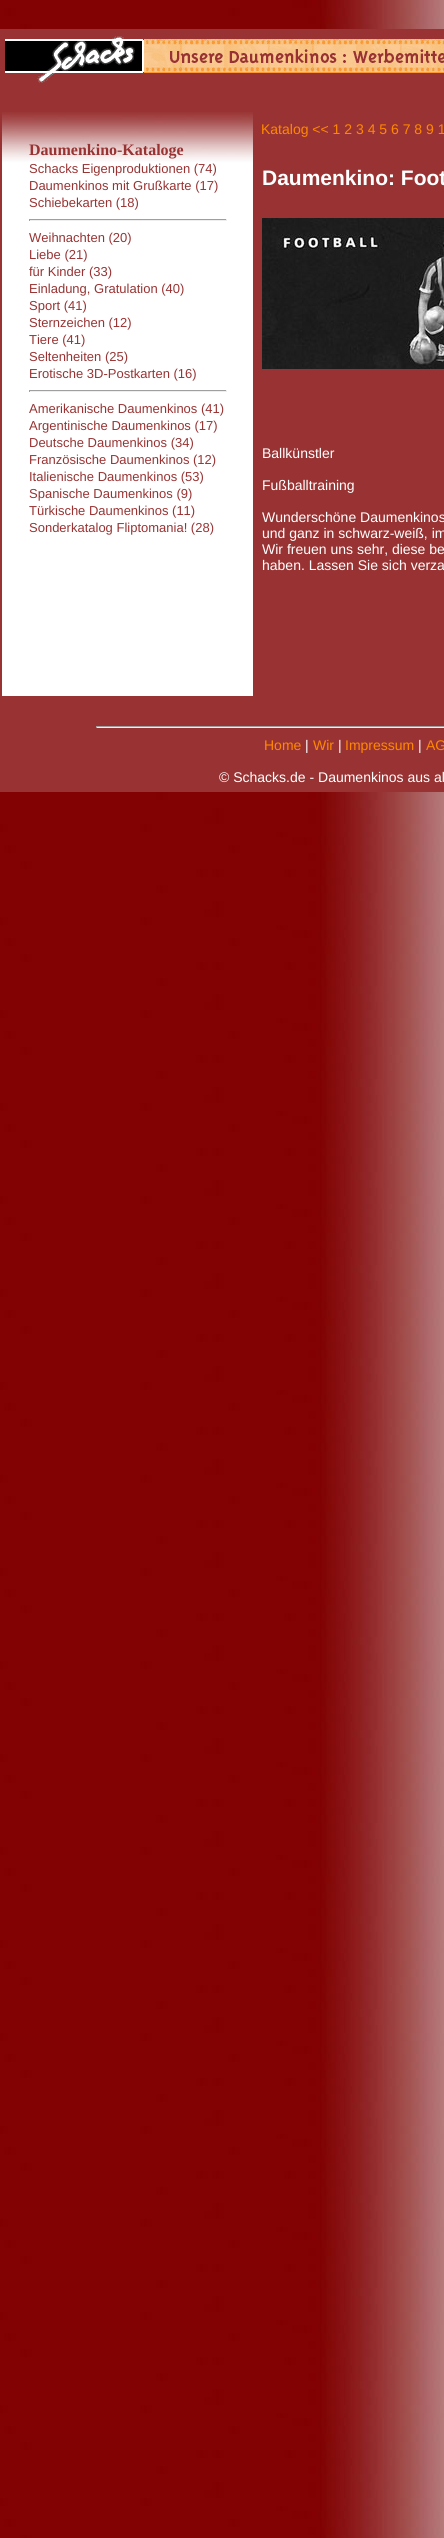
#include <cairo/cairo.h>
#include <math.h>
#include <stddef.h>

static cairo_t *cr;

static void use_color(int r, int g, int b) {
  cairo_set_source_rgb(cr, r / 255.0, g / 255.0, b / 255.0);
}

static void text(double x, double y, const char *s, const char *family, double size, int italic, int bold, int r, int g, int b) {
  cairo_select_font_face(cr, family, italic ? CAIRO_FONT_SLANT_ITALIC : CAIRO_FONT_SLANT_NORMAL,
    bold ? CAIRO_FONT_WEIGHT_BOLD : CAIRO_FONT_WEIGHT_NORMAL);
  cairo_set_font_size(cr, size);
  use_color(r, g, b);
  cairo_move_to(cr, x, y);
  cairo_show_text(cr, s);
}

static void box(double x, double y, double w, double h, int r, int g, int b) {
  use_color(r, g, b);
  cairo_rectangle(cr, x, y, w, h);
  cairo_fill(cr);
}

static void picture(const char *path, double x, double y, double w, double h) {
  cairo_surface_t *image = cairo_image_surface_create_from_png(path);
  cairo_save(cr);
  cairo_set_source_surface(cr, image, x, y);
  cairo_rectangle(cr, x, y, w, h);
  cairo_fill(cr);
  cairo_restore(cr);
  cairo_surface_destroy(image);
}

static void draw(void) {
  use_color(255, 255, 255);
  cairo_paint(cr);
  picture("img_01.png", 0, 0, 444, 2538);
  box(0, 29, 444, 763, 153, 51, 51);
  picture("img_02.png", 144, 39, 300, 34);
  picture("img_03.png", 5, 36, 139, 47);
  picture("img_04.png", 170, 49, 274, 15);
  picture("img_05.png", 2, 112, 251, 584);
  box(29, 219, 198, 1, 159, 159, 159);
  box(226, 219, 1, 2, 238, 238, 238);
  box(29, 220, 198, 1, 238, 238, 238);
  box(29, 219, 1, 2, 159, 159, 159);
  box(29, 390, 198, 1, 159, 159, 159);
  box(226, 390, 1, 2, 238, 238, 238);
  box(29, 391, 198, 1, 238, 238, 238);
  box(29, 390, 1, 2, 159, 159, 159);
  picture("img_06.png", 262, 218, 182, 151);
  box(96, 726, 348, 1, 159, 159, 159);
  box(96, 727, 348, 1, 238, 238, 238);
  box(96, 726, 1, 2, 159, 159, 159);
  text(29, 155, "Daumenkino-Kataloge", "Liberation Serif", 16, 0, 1, 153, 51, 51);
  text(29, 173, "Schacks Eigenproduktionen (74)", "Liberation Sans", 13, 0, 0, 153, 51, 51);
  text(29, 190, "Daumenkinos mit Grußkarte (17)", "Liberation Sans", 13, 0, 0, 153, 51, 51);
  text(29, 207, "Schiebekarten (18)", "Liberation Sans", 13, 0, 0, 153, 51, 51);
  text(29, 242, "Weihnachten (20)", "Liberation Sans", 13, 0, 0, 153, 51, 51);
  text(29, 259, "Liebe (21)", "Liberation Sans", 13, 0, 0, 153, 51, 51);
  text(29, 276, "für Kinder (33)", "Liberation Sans", 13, 0, 0, 153, 51, 51);
  text(29, 293, "Einladung, Gratulation (40)", "Liberation Sans", 13, 0, 0, 153, 51, 51);
  text(29, 310, "Sport (41)", "Liberation Sans", 13, 0, 0, 153, 51, 51);
  text(29, 327, "Sternzeichen (12)", "Liberation Sans", 13, 0, 0, 153, 51, 51);
  text(29, 344, "Tiere (41)", "Liberation Sans", 13, 0, 0, 153, 51, 51);
  text(29, 361, "Seltenheiten (25)", "Liberation Sans", 13, 0, 0, 153, 51, 51);
  text(29, 378, "Erotische 3D-Postkarten (16)", "Liberation Sans", 13, 0, 0, 153, 51, 51);
  text(29, 413, "Amerikanische Daumenkinos (41)", "Liberation Sans", 13, 0, 0, 153, 51, 51);
  text(29, 430, "Argentinische Daumenkinos (17)", "Liberation Sans", 13, 0, 0, 153, 51, 51);
  text(29, 447, "Deutsche Daumenkinos (34)", "Liberation Sans", 13, 0, 0, 153, 51, 51);
  text(29, 464, "Französische Daumenkinos (12)", "Liberation Sans", 13, 0, 0, 153, 51, 51);
  text(29, 481, "Italienische Daumenkinos (53)", "Liberation Sans", 13, 0, 0, 153, 51, 51);
  text(29, 498, "Spanische Daumenkinos (9)", "Liberation Sans", 13, 0, 0, 153, 51, 51);
  text(29, 515, "Türkische Daumenkinos (11)", "Liberation Sans", 13, 0, 0, 153, 51, 51);
  text(29, 532, "Sonderkatalog Fliptomania! (28)", "Liberation Sans", 13, 0, 0, 153, 51, 51);
  text(261, 134, "Katalog << 1 2 3 4 5 6 7 8 9 1", "Liberation Sans", 14, 0, 0, 255, 136, 0);
  text(262, 185, "Daumenkino: Foot", "Liberation Sans", 21, 0, 1, 255, 255, 255);
  text(262, 458, "Ballkünstler", "Liberation Sans", 14, 0, 0, 255, 255, 255);
  text(262, 490, "Fußballtraining", "Liberation Sans", 14, 0, 0, 255, 255, 255);
  text(262, 522, "Wunderschöne Daumenkinos", "Liberation Sans", 14, 0, 0, 255, 255, 255);
  text(262, 538, "und ganz in schwarz-weiß, im", "Liberation Sans", 14, 0, 0, 255, 255, 255);
  text(262, 554, "Wir freuen uns sehr, diese be", "Liberation Sans", 14, 0, 0, 255, 255, 255);
  text(262, 570, "haben. Lassen Sie sich verza", "Liberation Sans", 14, 0, 0, 255, 255, 255);
  text(264, 750, "Home", "Liberation Sans", 14, 0, 0, 255, 136, 0);
  text(305, 750, "|", "Liberation Sans", 14, 0, 0, 255, 255, 255);
  text(313, 750, "Wir", "Liberation Sans", 14, 0, 0, 255, 136, 0);
  text(338, 750, "|", "Liberation Sans", 14, 0, 0, 255, 255, 255);
  text(345, 750, "Impressum", "Liberation Sans", 14, 0, 0, 255, 136, 0);
  text(418, 750, "|", "Liberation Sans", 14, 0, 0, 255, 255, 255);
  text(426, 750, "AG", "Liberation Sans", 14, 0, 0, 255, 136, 0);
  text(219, 782, "© Schacks.de - Daumenkinos aus al", "Liberation Sans", 14, 0, 0, 255, 255, 255);
}

int main(void) {
  cairo_surface_t *surface = cairo_image_surface_create(CAIRO_FORMAT_RGB24, 444, 2538);
  cr = cairo_create(surface);
  cairo_font_options_t *options = cairo_font_options_create();
  cairo_font_options_set_hint_metrics(options, CAIRO_HINT_METRICS_OFF);
  cairo_font_options_set_hint_style(options, CAIRO_HINT_STYLE_NONE);
  cairo_set_font_options(cr, options);
  cairo_set_miter_limit(cr, 4);
  draw();
  cairo_surface_write_to_png(surface, "out.png");
  cairo_font_options_destroy(options);
  cairo_destroy(cr);
  cairo_surface_destroy(surface);
  return 0;
}
